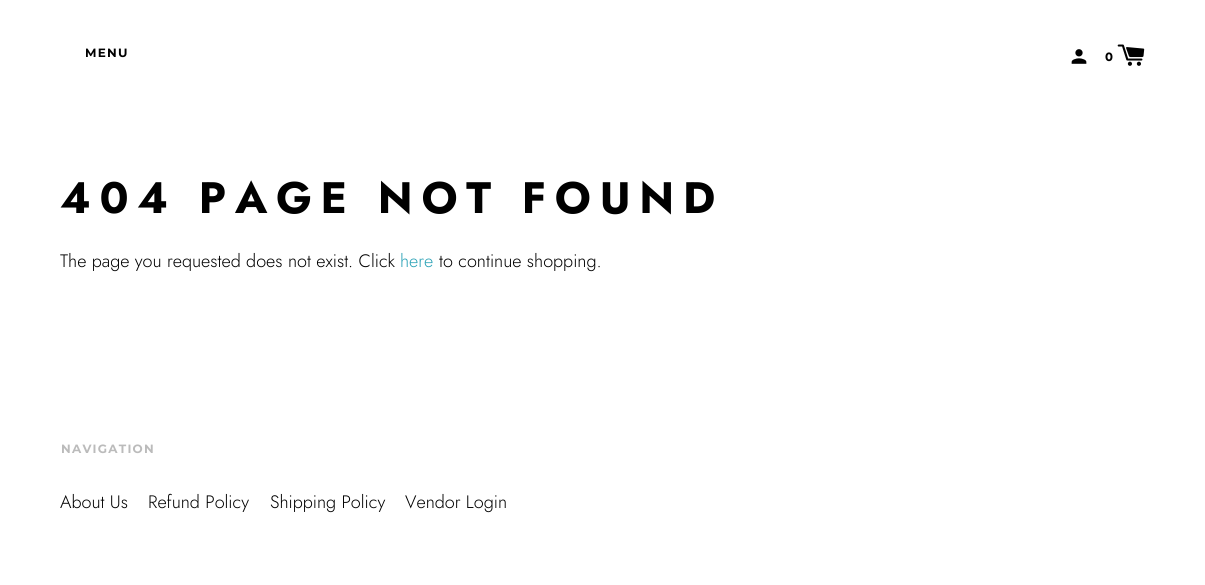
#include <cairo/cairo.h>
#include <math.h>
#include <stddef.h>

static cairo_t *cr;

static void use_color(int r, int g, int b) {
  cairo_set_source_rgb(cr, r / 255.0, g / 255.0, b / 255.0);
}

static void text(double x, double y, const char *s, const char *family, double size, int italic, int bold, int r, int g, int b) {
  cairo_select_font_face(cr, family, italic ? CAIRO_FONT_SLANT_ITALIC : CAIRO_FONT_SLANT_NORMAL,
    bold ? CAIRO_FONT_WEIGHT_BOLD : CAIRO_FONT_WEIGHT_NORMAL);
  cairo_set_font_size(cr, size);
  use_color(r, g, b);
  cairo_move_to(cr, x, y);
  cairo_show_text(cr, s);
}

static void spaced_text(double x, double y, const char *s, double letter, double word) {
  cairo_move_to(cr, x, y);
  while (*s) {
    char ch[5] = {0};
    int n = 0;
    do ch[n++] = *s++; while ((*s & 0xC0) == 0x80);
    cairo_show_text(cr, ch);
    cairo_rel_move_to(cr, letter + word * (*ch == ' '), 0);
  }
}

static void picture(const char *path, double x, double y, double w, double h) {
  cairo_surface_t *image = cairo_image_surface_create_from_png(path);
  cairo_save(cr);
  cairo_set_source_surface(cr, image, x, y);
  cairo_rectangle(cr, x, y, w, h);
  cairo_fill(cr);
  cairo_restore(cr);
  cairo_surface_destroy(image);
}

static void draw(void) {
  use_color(255, 255, 255);
  cairo_paint(cr);
  picture("img_01.png", 1071, 49, 16, 15);
  picture("img_02.png", 1117, 44, 28, 22);
  cairo_select_font_face(cr, "Montserrat", CAIRO_FONT_SLANT_NORMAL, CAIRO_FONT_WEIGHT_BOLD);
  cairo_set_font_size(cr, 12);
  use_color(0, 0, 0);
  spaced_text(85, 57, "MENU", 1.25, 0);
  text(1105, 61, "0", "Jost", 12, 0, 1, 0, 0, 0);
  cairo_set_font_size(cr, 44);
  spaced_text(60, 213, "404 PAGE NOT FOUND", 8.75, 0);
  text(60, 267, "The page you requested does not exist. Click", "Jost Light", 18, 0, 0, 0, 0, 0);
  text(400, 267, "here", "Jost Light", 18, 0, 0, 43, 162, 182);
  text(439, 267, "to continue shopping.", "Jost Light", 18, 0, 0, 0, 0, 0);
  cairo_select_font_face(cr, "Montserrat", CAIRO_FONT_SLANT_NORMAL, CAIRO_FONT_WEIGHT_BOLD);
  cairo_set_font_size(cr, 12);
  use_color(187, 187, 187);
  spaced_text(61, 453, "NAVIGATION", 1.25, 0);
  text(60, 508, "About Us", "Jost Light", 18, 0, 0, 0, 0, 0);
  text(148, 508, "Refund Policy", "Jost Light", 18, 0, 0, 0, 0, 0);
  text(270, 508, "Shipping Policy", "Jost Light", 18, 0, 0, 0, 0, 0);
  text(405, 508, "Vendor Login", "Jost Light", 18, 0, 0, 0, 0, 0);
}

int main(void) {
  cairo_surface_t *surface = cairo_image_surface_create(CAIRO_FORMAT_RGB24, 1205, 585);
  cr = cairo_create(surface);
  cairo_font_options_t *options = cairo_font_options_create();
  cairo_font_options_set_hint_metrics(options, CAIRO_HINT_METRICS_OFF);
  cairo_font_options_set_hint_style(options, CAIRO_HINT_STYLE_NONE);
  cairo_set_font_options(cr, options);
  cairo_set_miter_limit(cr, 4);
  draw();
  cairo_surface_write_to_png(surface, "out.png");
  cairo_font_options_destroy(options);
  cairo_destroy(cr);
  cairo_surface_destroy(surface);
  return 0;
}
